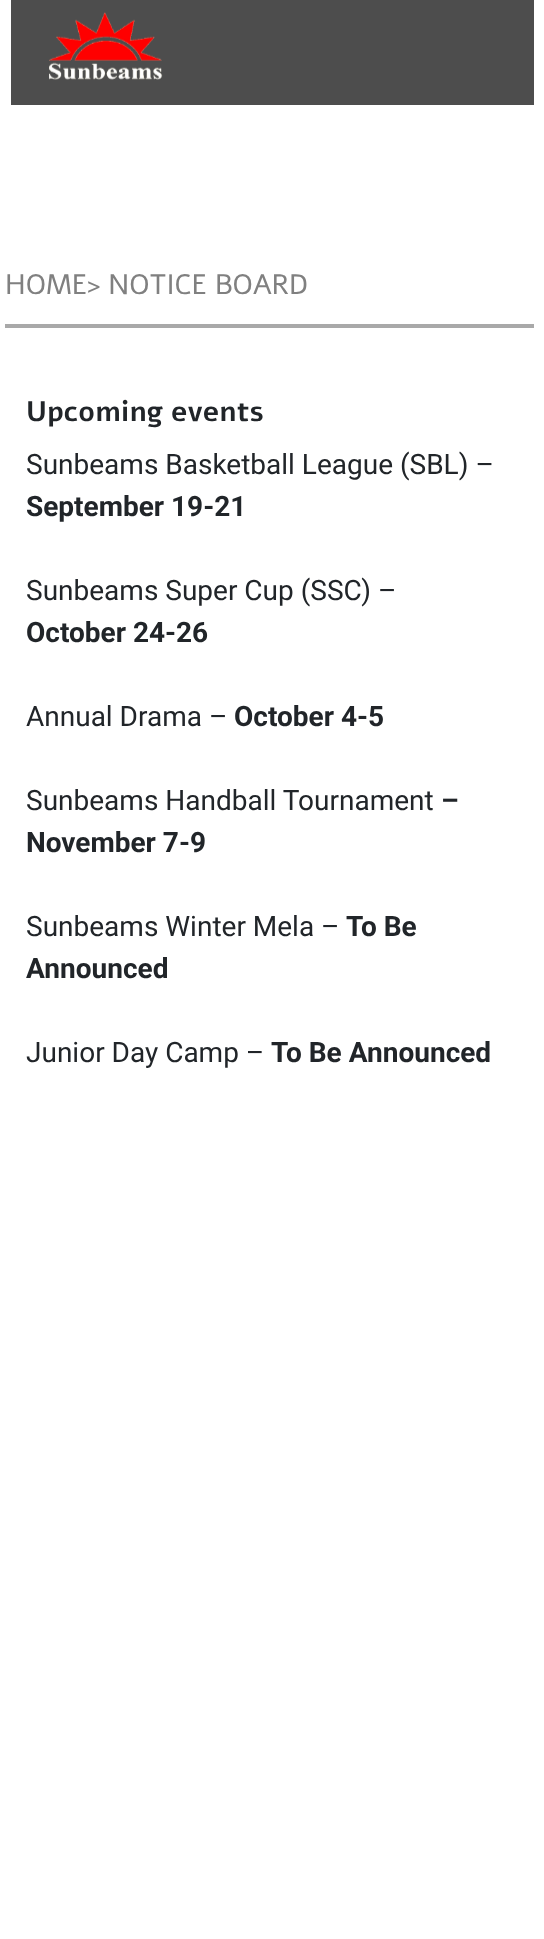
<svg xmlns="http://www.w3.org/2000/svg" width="544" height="1939">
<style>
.a{font:28px Alef;fill:#808080}
.b{font:bold 28px Alef;fill:#212529}
.c{font:28px Roboto;fill:#212529}
.d{font:bold 28px Roboto;fill:#212529}
</style>
<rect width="100%" height="100%" fill="#fff"/>
<path fill="#4d4d4d" d="M11 0h523v105H11z"/>
<image href="1.png" x="49" y="12" width="114" height="68"/>
<path fill="#a9a9a9" d="M5 324h529v4H5z"/>
<text class="a" x="5" y="294">HOME&gt; NOTICE BOARD</text>
<text class="b" x="26" y="421">Upcoming events</text>
<text class="c" x="26" y="474">Sunbeams Basketball League (SBL) –</text>
<text class="d" x="26" y="516">September 19-21</text>
<text class="c" x="26" y="600">Sunbeams Super Cup (SSC) –</text>
<text class="d" x="26" y="642">October 24-26</text>
<text class="c" x="26" y="726">Annual Drama –</text>
<text class="d" x="234" y="726">October 4-5</text>
<text class="c" x="26" y="810">Sunbeams Handball Tournament</text>
<text class="d" x="441" y="810">–</text>
<text class="d" x="26" y="852">November 7-9</text>
<text class="c" x="26" y="936">Sunbeams Winter Mela –</text>
<text class="d" x="346" y="936">To Be</text>
<text class="d" x="26" y="978">Announced</text>
<text class="c" x="26" y="1062">Junior Day Camp –</text>
<text class="d" x="271" y="1062">To Be Announced</text>
</svg>
